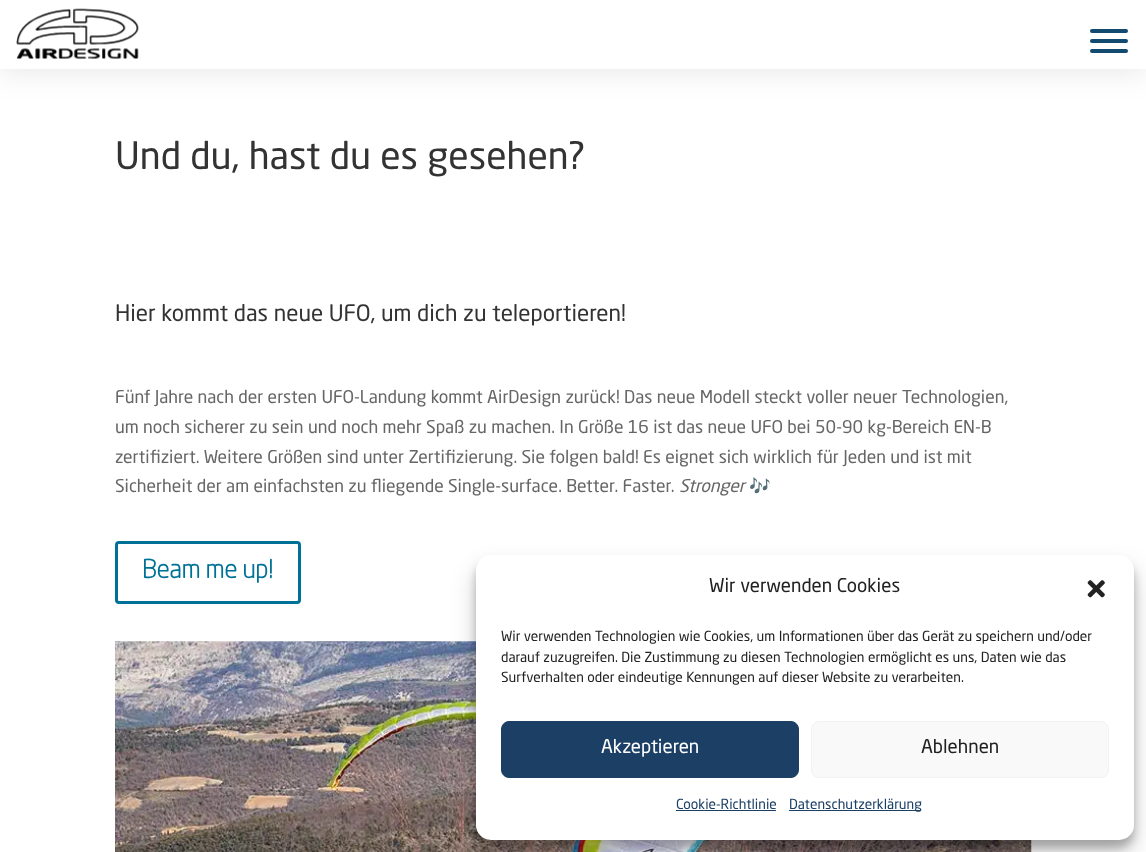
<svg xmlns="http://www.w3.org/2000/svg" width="1146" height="852">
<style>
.a{font:37.5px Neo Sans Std;fill:#333}
.b{font:22.5px Neo Sans Std;fill:#333}
.c{font:17.5px Neo Sans Std;fill:#666}
.d{font:italic 17.5px Neo Sans Std;fill:#666}
.e{font:17.5px Noto Color Emoji;fill:#666}
.f{font:bold 25px Neo Sans Std;fill:#007196}
.g{font:18.75px Neo Sans Std;fill:#222}
.h{font:13.75px Neo Sans Std;fill:#222}
.i{font:18.75px Neo Sans Std;fill:#fff}
.j{font:13.75px Neo Sans Std;fill:#1c3f65}
</style>
<rect width="100%" height="100%" fill="#fff"/>
<path fill="#0000001a" filter="blur(15.5px)" d="M0 3h1146v68H0z"/>
<path fill="#fff" d="M0 0h1146v69H0z"/>
<image href="1.png" x="16" y="8" width="123" height="51"/>
<rect fill="#134a70" x="1090" y="49" width="38" height="4" rx="2"/>
<rect fill="#134a70" x="1090" y="29" width="38" height="4" rx="2"/>
<rect fill="#134a70" x="1090" y="39" width="38" height="4" rx="2"/>
<rect fill="none" stroke="#007196" stroke-width="3" x="116.5" y="542.5" width="183" height="60" rx="2.5"/>
<image href="2.png" x="115" y="641" width="917" height="211"/>
<rect fill="#0000003b" filter="blur(4px)" x="476" y="563" width="658" height="285" rx="15"/>
<rect fill="#00000030" filter="blur(12.5px)" x="476" y="568" width="658" height="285" rx="15"/>
<rect fill="#fff" x="476" y="555" width="658" height="285" rx="15"/>
<image href="3.png" x="1087" y="580" width="18" height="18"/>
<rect fill="#1c3f65" stroke="#1c3f65" x="501.5" y="721.5" width="297" height="56" rx="7.5"/>
<rect fill="#f9f9f9" stroke="#f2f2f2" x="811.5" y="721.5" width="297" height="56" rx="7.5"/>
<path fill="#1c3f65" d="M676 810h100v1H676z"/>
<path fill="#1c3f65" d="M789 810h132v1H789z"/>
<text class="a" x="115" y="169">Und du, hast du es gesehen?</text>
<text class="b" x="115" y="321">Hier kommt das neue UFO, um dich zu teleportieren!</text>
<text class="c" x="115" y="403">Fünf Jahre nach der ersten UFO-Landung kommt AirDesign zurück! Das neue Modell steckt voller neuer Technologien,</text>
<text class="c" x="115" y="433">um noch sicherer zu sein und noch mehr Spaß zu machen. In Größe 16 ist das neue UFO bei 50-90 kg-Bereich EN-B</text>
<text class="c" x="115" y="463">zertifiziert. Weitere Größen sind unter Zertifizierung. Sie folgen bald! Es eignet sich wirklich für Jeden und ist mit</text>
<text class="c" x="115" y="492">Sicherheit der am einfachsten zu fliegende Single-surface. Better. Faster.</text>
<text class="d" x="679" y="492">Stronger</text>
<text class="e" x="749" y="492">🎶</text>
<text class="f" x="142" y="578">Beam me up!</text>
<text class="g" x="709" y="592">Wir verwenden Cookies</text>
<text class="h" x="501" y="641">Wir verwenden Technologien wie Cookies, um Informationen über das Gerät zu speichern und/oder</text>
<text class="h" x="501" y="662">darauf zuzugreifen. Die Zustimmung zu diesen Technologien ermöglicht es uns, Daten wie das</text>
<text class="h" x="501" y="682">Surfverhalten oder eindeutige Kennungen auf dieser Website zu verarbeiten.</text>
<text class="i" x="601" y="753">Akzeptieren</text>
<text class="g" x="921" y="753">Ablehnen</text>
<text class="j" x="676" y="809">Cookie-Richtlinie</text>
<text class="j" x="789" y="809">Datenschutzerklärung</text>
</svg>
